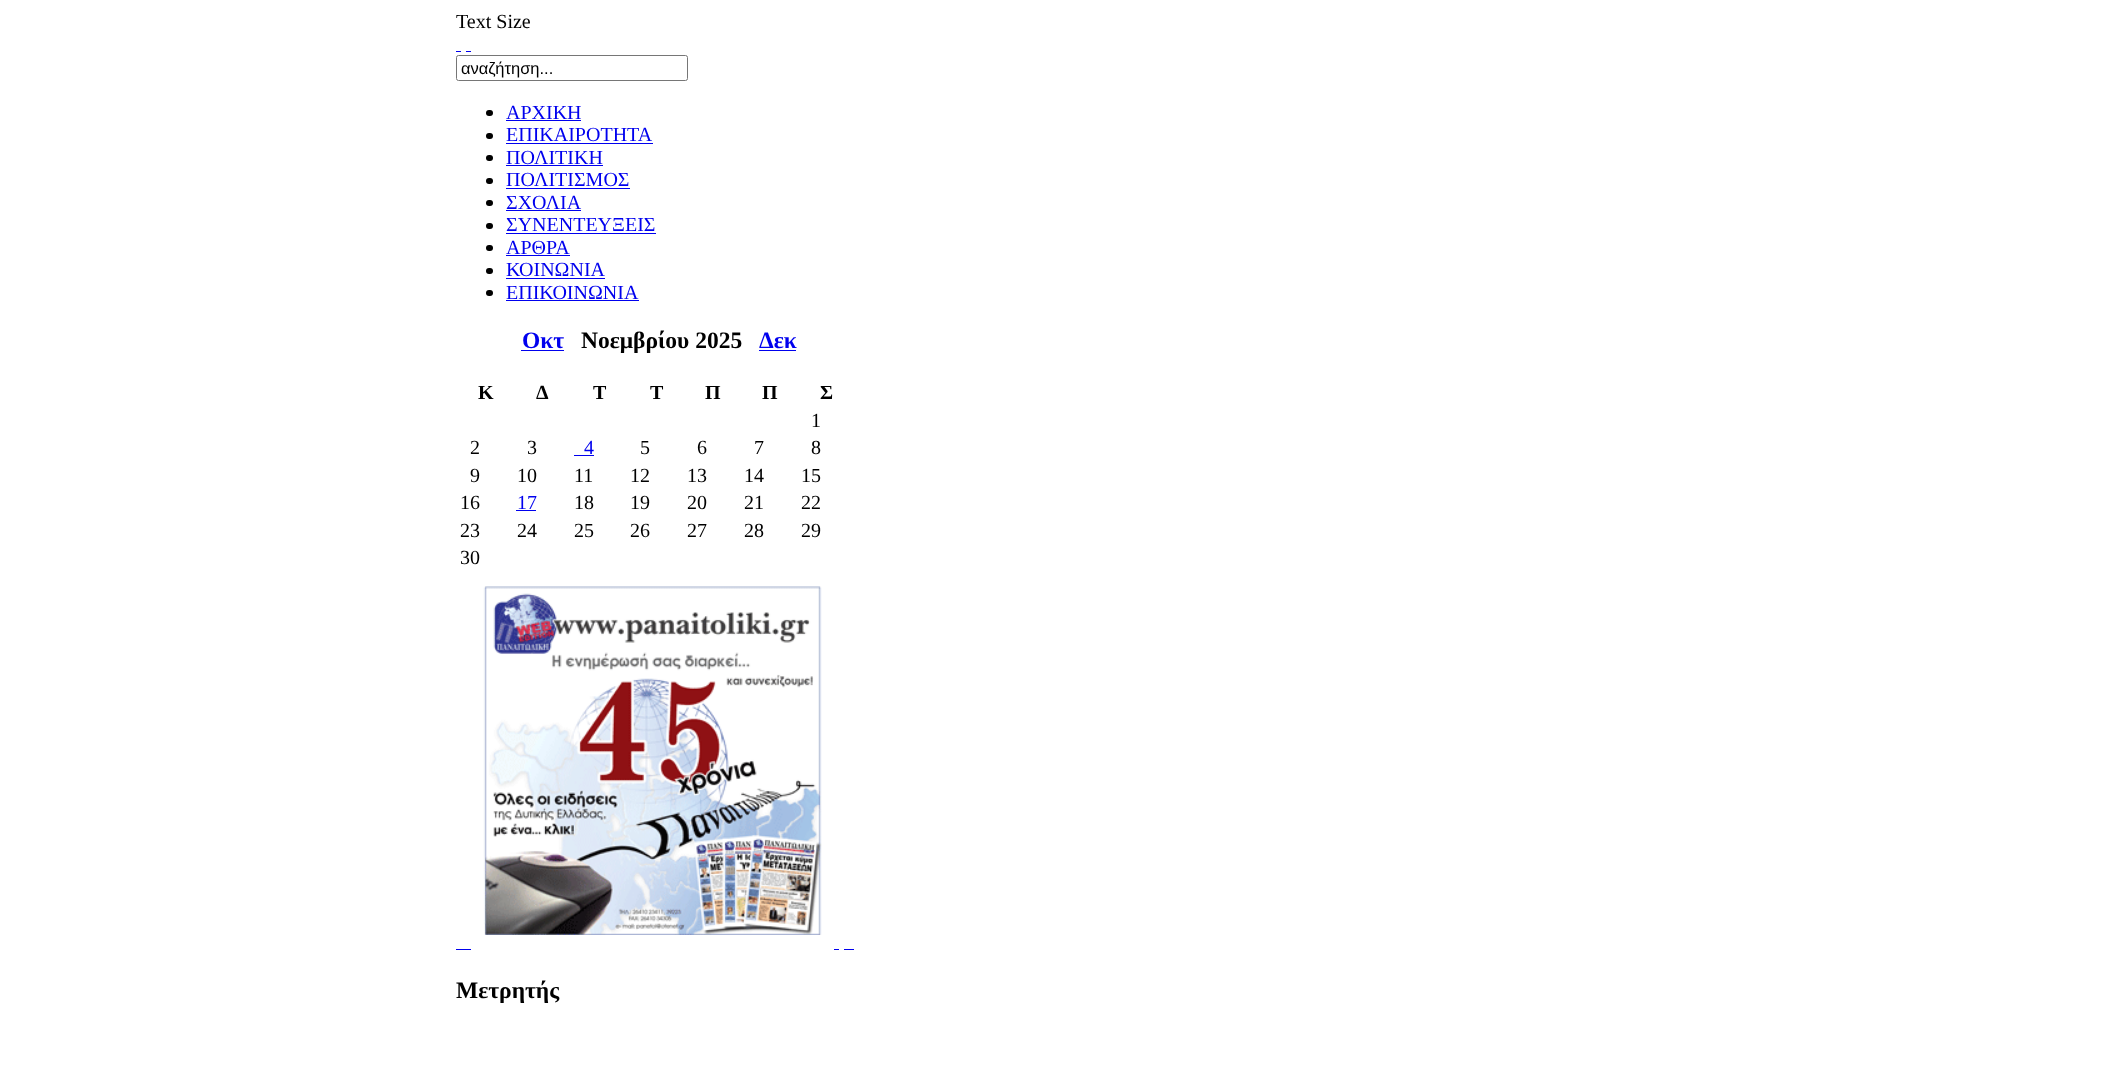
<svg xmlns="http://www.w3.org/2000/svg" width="2114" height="1086">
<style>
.a{font:20px Liberation Serif;fill:#000}
.b{font:16.5px Liberation Sans;fill:#000}
.c{font:20px Liberation Serif;fill:#00e}
.d{font:bold 23.5px Liberation Serif;fill:#00e}
.e{font:bold 23.5px Liberation Serif;fill:#000}
.f{font:bold 20px Liberation Serif;fill:#000}
</style>
<rect width="100%" height="100%" fill="#fff"/>
<path fill="#00e" d="M456 51h5v1H456z"/>
<path fill="#00e" d="M466 51h5v1H466z"/>
<rect fill="none" stroke="#767676" x="456.5" y="55.5" width="231" height="25" rx="2"/>
<rect fill="#000" x="486" y="110" width="7" height="6" rx="3"/>
<path fill="#00e" d="M506 120h75v1H506z"/>
<rect fill="#000" x="486" y="133" width="7" height="6" rx="3"/>
<path fill="#00e" d="M506 143h147v1H506z"/>
<rect fill="#000" x="486" y="155" width="7" height="6" rx="3"/>
<path fill="#00e" d="M506 165h97v1H506z"/>
<rect fill="#000" x="486" y="178" width="7" height="6" rx="3"/>
<path fill="#00e" d="M506 188h124v1H506z"/>
<rect fill="#000" x="486" y="200" width="7" height="6" rx="3"/>
<path fill="#00e" d="M506 210h75v1H506z"/>
<rect fill="#000" x="486" y="223" width="7" height="6" rx="3"/>
<path fill="#00e" d="M506 233h150v1H506z"/>
<rect fill="#000" x="486" y="245" width="7" height="6" rx="3"/>
<path fill="#00e" d="M506 255h64v1H506z"/>
<rect fill="#000" x="486" y="268" width="7" height="6" rx="3"/>
<path fill="#00e" d="M506 278h99v1H506z"/>
<rect fill="#000" x="486" y="290" width="7" height="6" rx="3"/>
<path fill="#00e" d="M506 300h133v1H506z"/>
<path fill="#00e" d="M521 350h43v1H521z"/>
<path fill="#00e" d="M759 350h37v1H759z"/>
<path fill="#00e" d="M574 455h20v1H574z"/>
<path fill="#00e" d="M516 510h20v1H516z"/>
<image href="1.png" x="483" y="586" width="339" height="349"/>
<path fill="#00e" d="M456 949h15v1H456z"/>
<path fill="#00e" d="M834 949h5v1H834z"/>
<path fill="#00e" d="M844 949h10v1H844z"/>
<text class="a" x="456" y="28">Text Size</text>
<text class="b" x="461" y="74">αναζήτηση...</text>
<text class="c" x="506" y="119">ΑΡΧΙΚΗ</text>
<text class="c" x="506" y="141">ΕΠΙΚΑΙΡΟΤΗΤΑ</text>
<text class="c" x="506" y="164">ΠΟΛΙΤΙΚΗ</text>
<text class="c" x="506" y="186">ΠΟΛΙΤΙΣΜΟΣ</text>
<text class="c" x="506" y="209">ΣΧΟΛΙΑ</text>
<text class="c" x="506" y="231">ΣΥΝΕΝΤΕΥΞΕΙΣ</text>
<text class="c" x="506" y="254">ΑΡΘΡΑ</text>
<text class="c" x="506" y="276">ΚΟΙΝΩΝΙΑ</text>
<text class="c" x="506" y="299">ΕΠΙΚΟΙΝΩΝΙΑ</text>
<text class="d" x="522" y="348">Οκτ</text>
<text class="e" x="581" y="348">Νοεμβρίου 2025</text>
<text class="d" x="759" y="348">Δεκ</text>
<text class="f" x="478" y="399">Κ</text>
<text class="f" x="536" y="399">Δ</text>
<text class="f" x="593" y="399">Τ</text>
<text class="f" x="650" y="399">Τ</text>
<text class="f" x="705" y="399">Π</text>
<text class="f" x="762" y="399">Π</text>
<text class="f" x="820" y="399">Σ</text>
<text class="a" x="811" y="427">1</text>
<text class="a" x="470" y="454">2</text>
<text class="a" x="527" y="454">3</text>
<text class="c" x="584" y="454">4</text>
<text class="a" x="640" y="454">5</text>
<text class="a" x="697" y="454">6</text>
<text class="a" x="754" y="454">7</text>
<text class="a" x="811" y="454">8</text>
<text class="a" x="470" y="482">9</text>
<text class="a" x="517" y="482">10</text>
<text class="a" x="574" y="482">11</text>
<text class="a" x="630" y="482">12</text>
<text class="a" x="687" y="482">13</text>
<text class="a" x="744" y="482">14</text>
<text class="a" x="801" y="482">15</text>
<text class="a" x="460" y="509">16</text>
<text class="c" x="517" y="509">17</text>
<text class="a" x="574" y="509">18</text>
<text class="a" x="630" y="509">19</text>
<text class="a" x="687" y="509">20</text>
<text class="a" x="744" y="509">21</text>
<text class="a" x="801" y="509">22</text>
<text class="a" x="460" y="537">23</text>
<text class="a" x="517" y="537">24</text>
<text class="a" x="574" y="537">25</text>
<text class="a" x="630" y="537">26</text>
<text class="a" x="687" y="537">27</text>
<text class="a" x="744" y="537">28</text>
<text class="a" x="801" y="537">29</text>
<text class="a" x="460" y="564">30</text>
<text class="e" x="456" y="998">Μετρητής</text>
</svg>
